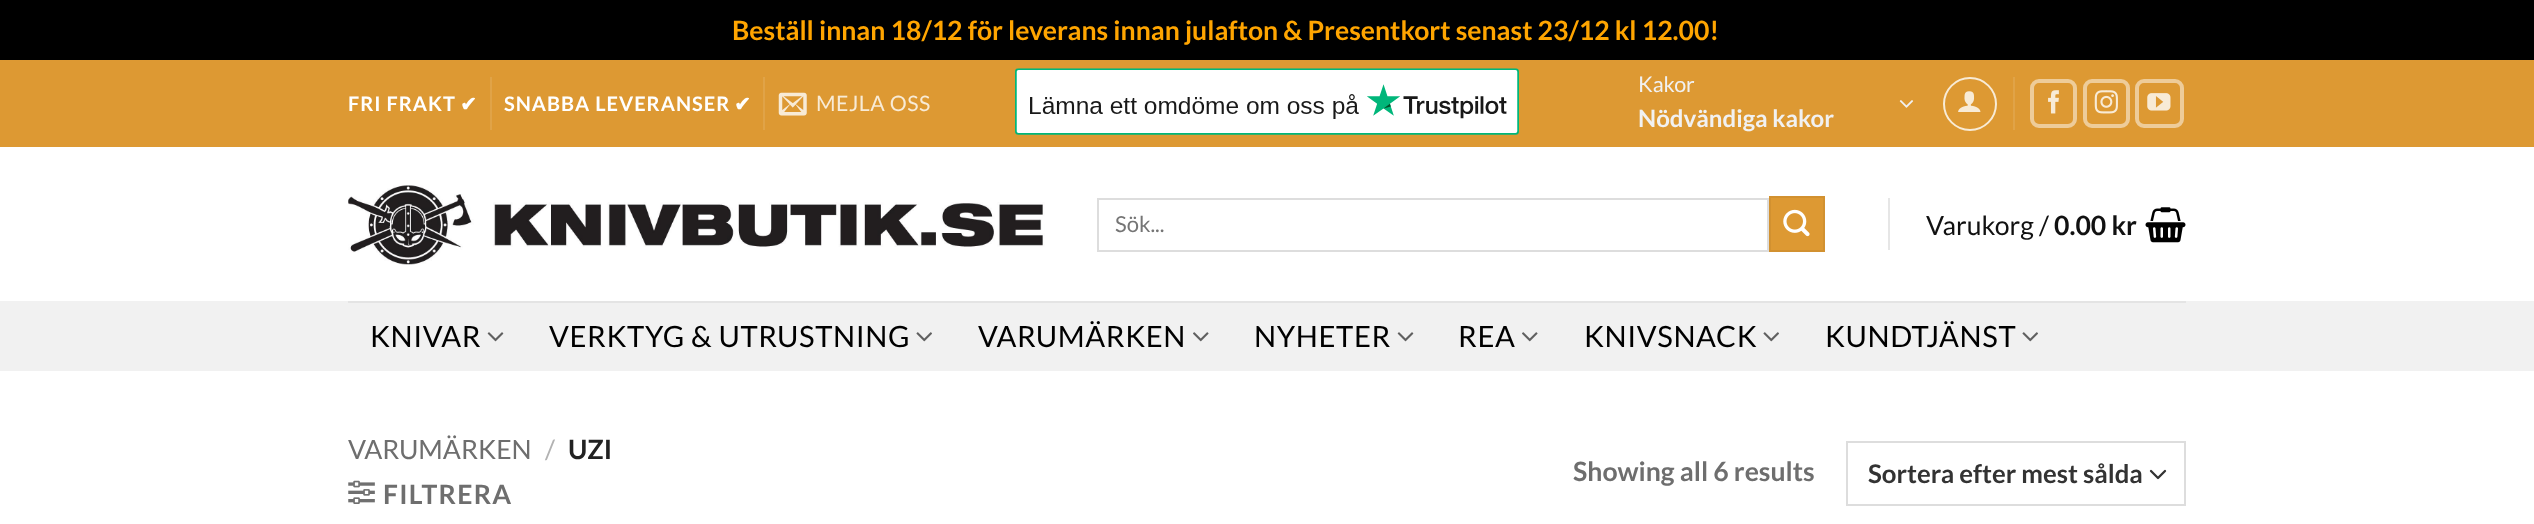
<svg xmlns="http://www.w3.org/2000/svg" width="2534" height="524">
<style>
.a{font:bold 26.6px Lato;fill:#ffa500}
.b{font:bold 20px Lato;letter-spacing:1px;fill:#fff}
.c{font:bold 20px DejaVu Sans;fill:#fff}
.d{font:21.25px Lato;letter-spacing:0.5px;fill:#f8ebd6}
.e{font:21.5px Lato;fill:#f1f1f1}
.f{font:bold 24px Lato;fill:#f1f1f1}
.g{font:22px Lato;fill:#757575}
.h{font:26.6px Lato;fill:#111}
.i{font:bold 26.6px Lato;fill:#111}
.j{font:29.25px Lato;letter-spacing:0.6px;fill:#000}
.k{font:26.6px Lato;fill:#6e6e6e}
.l{font:26.6px Lato;fill:#b2b2b2}
.m{font:bold 26.6px Lato;fill:#222}
.n{font:bold 26.6px Lato;letter-spacing:1.25px;fill:#6e6e6e}
.o{font:bold 26.6px Lato;fill:#6e6e6e}
.p{font:bold 25.75px Lato;fill:#333}
</style>
<rect width="100%" height="100%" fill="#000"/>
<path fill="#fff" d="M0 147h2534v377H0z"/>
<path fill="#d93" d="M0 60h2534v87H0z"/>
<path fill="#e0a347" d="M490 77h2v53H490z"/>
<path fill="#e0a347" d="M763 77h2v53H763z"/>
<image href="1.png" x="778" y="92" width="29" height="24"/>
<image href="2.png" x="1015" y="68" width="504" height="67"/>
<image href="3.png" x="1899" y="100" width="15" height="8"/>
<circle fill="none" stroke="#f8ebd6" stroke-width="2" cx="1970" cy="104" r="26"/>
<image href="4.png" x="1958" y="91" width="23" height="21"/>
<path fill="#e0a347" d="M2013 77h2v53H2013z"/>
<rect fill="none" stroke="#ec9" stroke-width="4" x="2032" y="81" width="43" height="45" rx="7"/>
<image href="5.png" x="2048" y="90" width="11" height="24"/>
<rect fill="none" stroke="#ec9" stroke-width="4" x="2085" y="81" width="43" height="45" rx="7"/>
<image href="6.png" x="2094" y="90" width="24" height="24"/>
<rect fill="none" stroke="#ec9" stroke-width="4" x="2137" y="81" width="45" height="45" rx="7"/>
<image href="7.png" x="2147" y="93" width="24" height="18"/>
<image href="8.png" x="348" y="185" width="697" height="80"/>
<path fill="none" stroke="#ddd" stroke-width="2" d="M1098 199h670v52H1098z"/>
<path fill="#d93" stroke="#d29130" stroke-width="2" d="M1770 197h54v54H1770z"/>
<image href="9.png" x="1783" y="209" width="27" height="28"/>
<path fill="#e6e6e6" d="M1888 198h2v52H1888z"/>
<image href="10.png" x="2145" y="207" width="41" height="36"/>
<path fill="#f1f1f1" d="M0 301h2534v70H0z"/>
<path fill="#e4e4e4" d="M348 301h1838v2H348z"/>
<image href="11.png" x="487" y="332" width="17" height="10"/>
<image href="12.png" x="916" y="332" width="16" height="10"/>
<image href="13.png" x="1193" y="332" width="16" height="10"/>
<image href="11.png" x="1397" y="332" width="17" height="10"/>
<image href="13.png" x="1522" y="332" width="16" height="10"/>
<image href="12.png" x="1763" y="332" width="16" height="10"/>
<image href="12.png" x="2022" y="332" width="16" height="10"/>
<image href="14.png" x="348" y="480" width="27" height="24"/>
<path fill="none" stroke="#333" stroke-width="2.3" stroke-linecap="round" stroke-linejoin="round" d="M2151 471l7 7l7-7"/>
<path fill="none" stroke="#ddd" stroke-width="2" d="M1847 442h338v63H1847z"/>
<text class="a" x="732" y="40">Beställ innan 18/12 för leverans innan julafton &amp; Presentkort senast 23/12 kl 12.00!</text>
<text class="b" x="348" y="111">FRI FRAKT</text>
<text class="c" x="460" y="111">✔</text>
<text class="b" x="504" y="111">SNABBA LEVERANSER</text>
<text class="c" x="734" y="111">✔</text>
<text class="d" x="816" y="111">MEJLA OSS</text>
<text class="e" x="1638" y="92">Kakor</text>
<text class="f" x="1638" y="127">Nödvändiga kakor</text>
<text class="g" x="1115" y="232">Sök...</text>
<text class="h" x="1926" y="235">Varukorg /</text>
<text class="i" x="2054" y="235">0.00 kr</text>
<text class="j" x="370" y="347">KNIVAR</text>
<text class="j" x="549" y="347">VERKTYG &amp; UTRUSTNING</text>
<text class="j" x="978" y="347">VARUMÄRKEN</text>
<text class="j" x="1254" y="347">NYHETER</text>
<text class="j" x="1458" y="347">REA</text>
<text class="j" x="1584" y="347">KNIVSNACK</text>
<text class="j" x="1825" y="347">KUNDTJÄNST</text>
<text class="k" x="348" y="459">VARUMÄRKEN</text>
<text class="l" x="545" y="459">/</text>
<text class="m" x="568" y="459">UZI</text>
<text class="n" x="383" y="504">FILTRERA</text>
<text class="o" x="1573" y="481">Showing all 6 results</text>
<text class="p" x="1868" y="483">Sortera efter mest sålda</text>
</svg>
